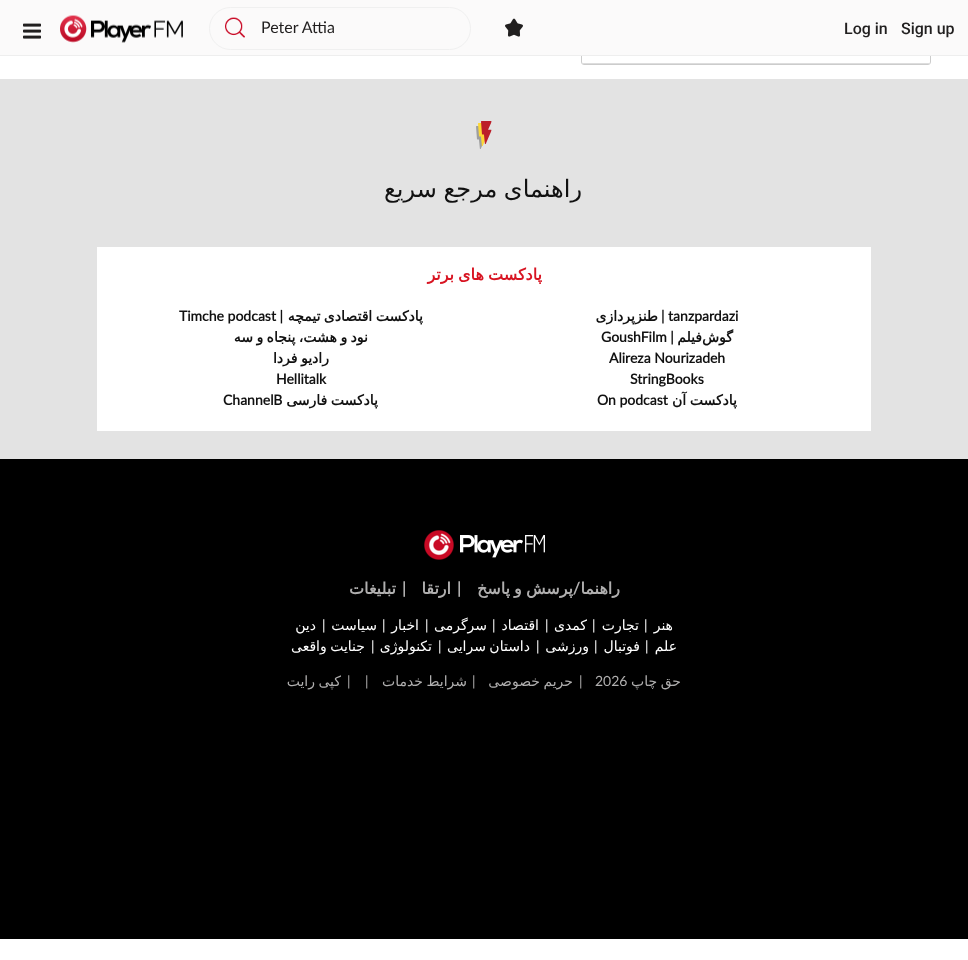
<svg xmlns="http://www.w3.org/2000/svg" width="968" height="960">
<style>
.a{font:500 16px Roboto;fill:#211f1f}
.b{font:16px Lato;fill:#211f1f}
.c{font:24px DejaVu Sans;direction:rtl;fill:#111}
.d{font:bold 16px DejaVu Sans;direction:rtl;fill:#d81422}
.e{font:bold 14px Lato;fill:#111}
.f{font:bold 14px DejaVu Sans;direction:rtl;fill:#111}
.g{font:bold 16px DejaVu Sans;direction:rtl;fill:#b0afaf}
.h{font:bold 16px Lato;direction:rtl;fill:#b0afaf}
.i{font:bold 16px Lato;fill:#b0afaf}
.j{font:14px DejaVu Sans;direction:rtl;fill:#fff}
.k{font:14px Lato;fill:#fff}
.l{font:14px DejaVu Sans;direction:rtl;fill:#b0afaf}
.m{font:14px Lato;fill:#b0afaf}
</style>
<rect width="100%" height="100%" fill="#fff"/>
<rect fill="none" stroke="#ccc" x="581.5" y="-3.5" width="349" height="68" rx="2.5"/>
<path fill="#ddd" d="M582 63h348v1H582z"/>
<path fill="#fbfafa" d="M0 0h968v55H0z"/>
<path fill="#eee" d="M0 55h968v1H0z"/>
<image href="1.png" x="505" y="18" width="18" height="19"/>
<rect fill="none" stroke="#f0f0f0" x="209.5" y="7.5" width="261" height="42" rx="21"/>
<image href="2.png" x="225" y="17" width="20" height="21"/>
<image href="3.png" x="60" y="15" width="123" height="28"/>
<image href="4.png" x="23" y="23" width="18" height="16"/>
<path fill="#e3e3e3" d="M0 79h968v380H0z"/>
<image href="5.png" x="476" y="121" width="16" height="28"/>
<path fill="#fff" d="M97 247h774v184H97z"/>
<path fill="#000" d="M0 459h968v480H0z"/>
<image href="6.png" x="460" y="535" width="85" height="23"/>
<image href="7.png" x="424" y="530" width="30" height="30"/>
<text class="a" x="901" y="34">Sign up</text>
<text class="a" x="844" y="34">Log in</text>
<text class="b" x="261" y="33">Peter Attia</text>
<text class="c" x="582" y="197" word-spacing="-1">راهنمای مرجع سریع</text>
<text class="d" x="542" y="280" word-spacing="-1">پادکست های برتر</text>
<text class="e" x="661" y="321">| tanzpardazi</text>
<text class="f" x="658" y="321">طنزپردازی</text>
<text class="f" x="423" y="321" word-spacing="-1">پادکست اقتصادی تیمچه</text>
<text class="e" x="179" y="321">Timche podcast |</text>
<text class="f" x="733" y="342">گوش</text>
<text class="f" x="702" y="342">فیلم</text>
<text class="e" x="601" y="342">GoushFilm |</text>
<text class="f" x="368" y="342" word-spacing="-1">نود و هشت، پنجاه و سه</text>
<text class="e" x="609" y="363">Alireza Nourizadeh</text>
<text class="f" x="329" y="363" word-spacing="-1">رادیو فردا</text>
<text class="e" x="630" y="384">StringBooks</text>
<text class="e" x="276" y="384">Hellitalk</text>
<text class="f" x="737" y="405" word-spacing="-1">پادکست آن</text>
<text class="e" x="597" y="405">On podcast</text>
<text class="f" x="378" y="405" word-spacing="-1">پادکست فارسی</text>
<text class="e" x="223" y="405">ChannelB</text>
<text class="g" x="620" y="594">راهنما</text>
<text class="g" x="573" y="594" word-spacing="-1">پرسش و پاسخ</text>
<text class="h" x="580" y="594">/</text>
<text class="i" x="457" y="594">|</text>
<text class="g" x="451" y="594">ارتقا</text>
<text class="i" x="402" y="594">|</text>
<text class="g" x="396" y="594">تبلیغات</text>
<text class="j" x="673" y="630">هنر</text>
<text class="k" x="644" y="630">|</text>
<text class="j" x="639" y="630">تجارت</text>
<text class="k" x="592" y="630">|</text>
<text class="j" x="587" y="630">کمدی</text>
<text class="k" x="545" y="630">|</text>
<text class="j" x="539" y="630">اقتصاد</text>
<text class="k" x="492" y="630">|</text>
<text class="j" x="487" y="630">سرگرمی</text>
<text class="k" x="425" y="630">|</text>
<text class="j" x="419" y="630">اخبار</text>
<text class="k" x="382" y="630">|</text>
<text class="j" x="377" y="630">سیاست</text>
<text class="k" x="322" y="630">|</text>
<text class="j" x="316" y="630">دین</text>
<text class="j" x="677" y="651">علم</text>
<text class="k" x="645" y="651">|</text>
<text class="j" x="640" y="651">فوتبال</text>
<text class="k" x="594" y="651">|</text>
<text class="j" x="589" y="651">ورزشی</text>
<text class="k" x="536" y="651">|</text>
<text class="j" x="530" y="651" word-spacing="-1">داستان سرایی</text>
<text class="k" x="438" y="651">|</text>
<text class="j" x="432" y="651">تکنولوژی</text>
<text class="k" x="371" y="651">|</text>
<text class="j" x="365" y="651" word-spacing="-1">جنایت واقعی</text>
<text class="l" x="681" y="686" word-spacing="-1">حق چاپ</text>
<text class="m" x="595" y="686">2026</text>
<text class="m" x="579" y="686">|</text>
<text class="l" x="573" y="686" word-spacing="-1">حریم خصوصی</text>
<text class="m" x="472" y="686">|</text>
<text class="l" x="467" y="686" word-spacing="-1">شرایط خدمات</text>
<text class="m" x="365" y="686">|</text>
<text class="m" x="347" y="686">|</text>
<text class="l" x="341" y="686" word-spacing="-1">کپی رایت</text>
</svg>
